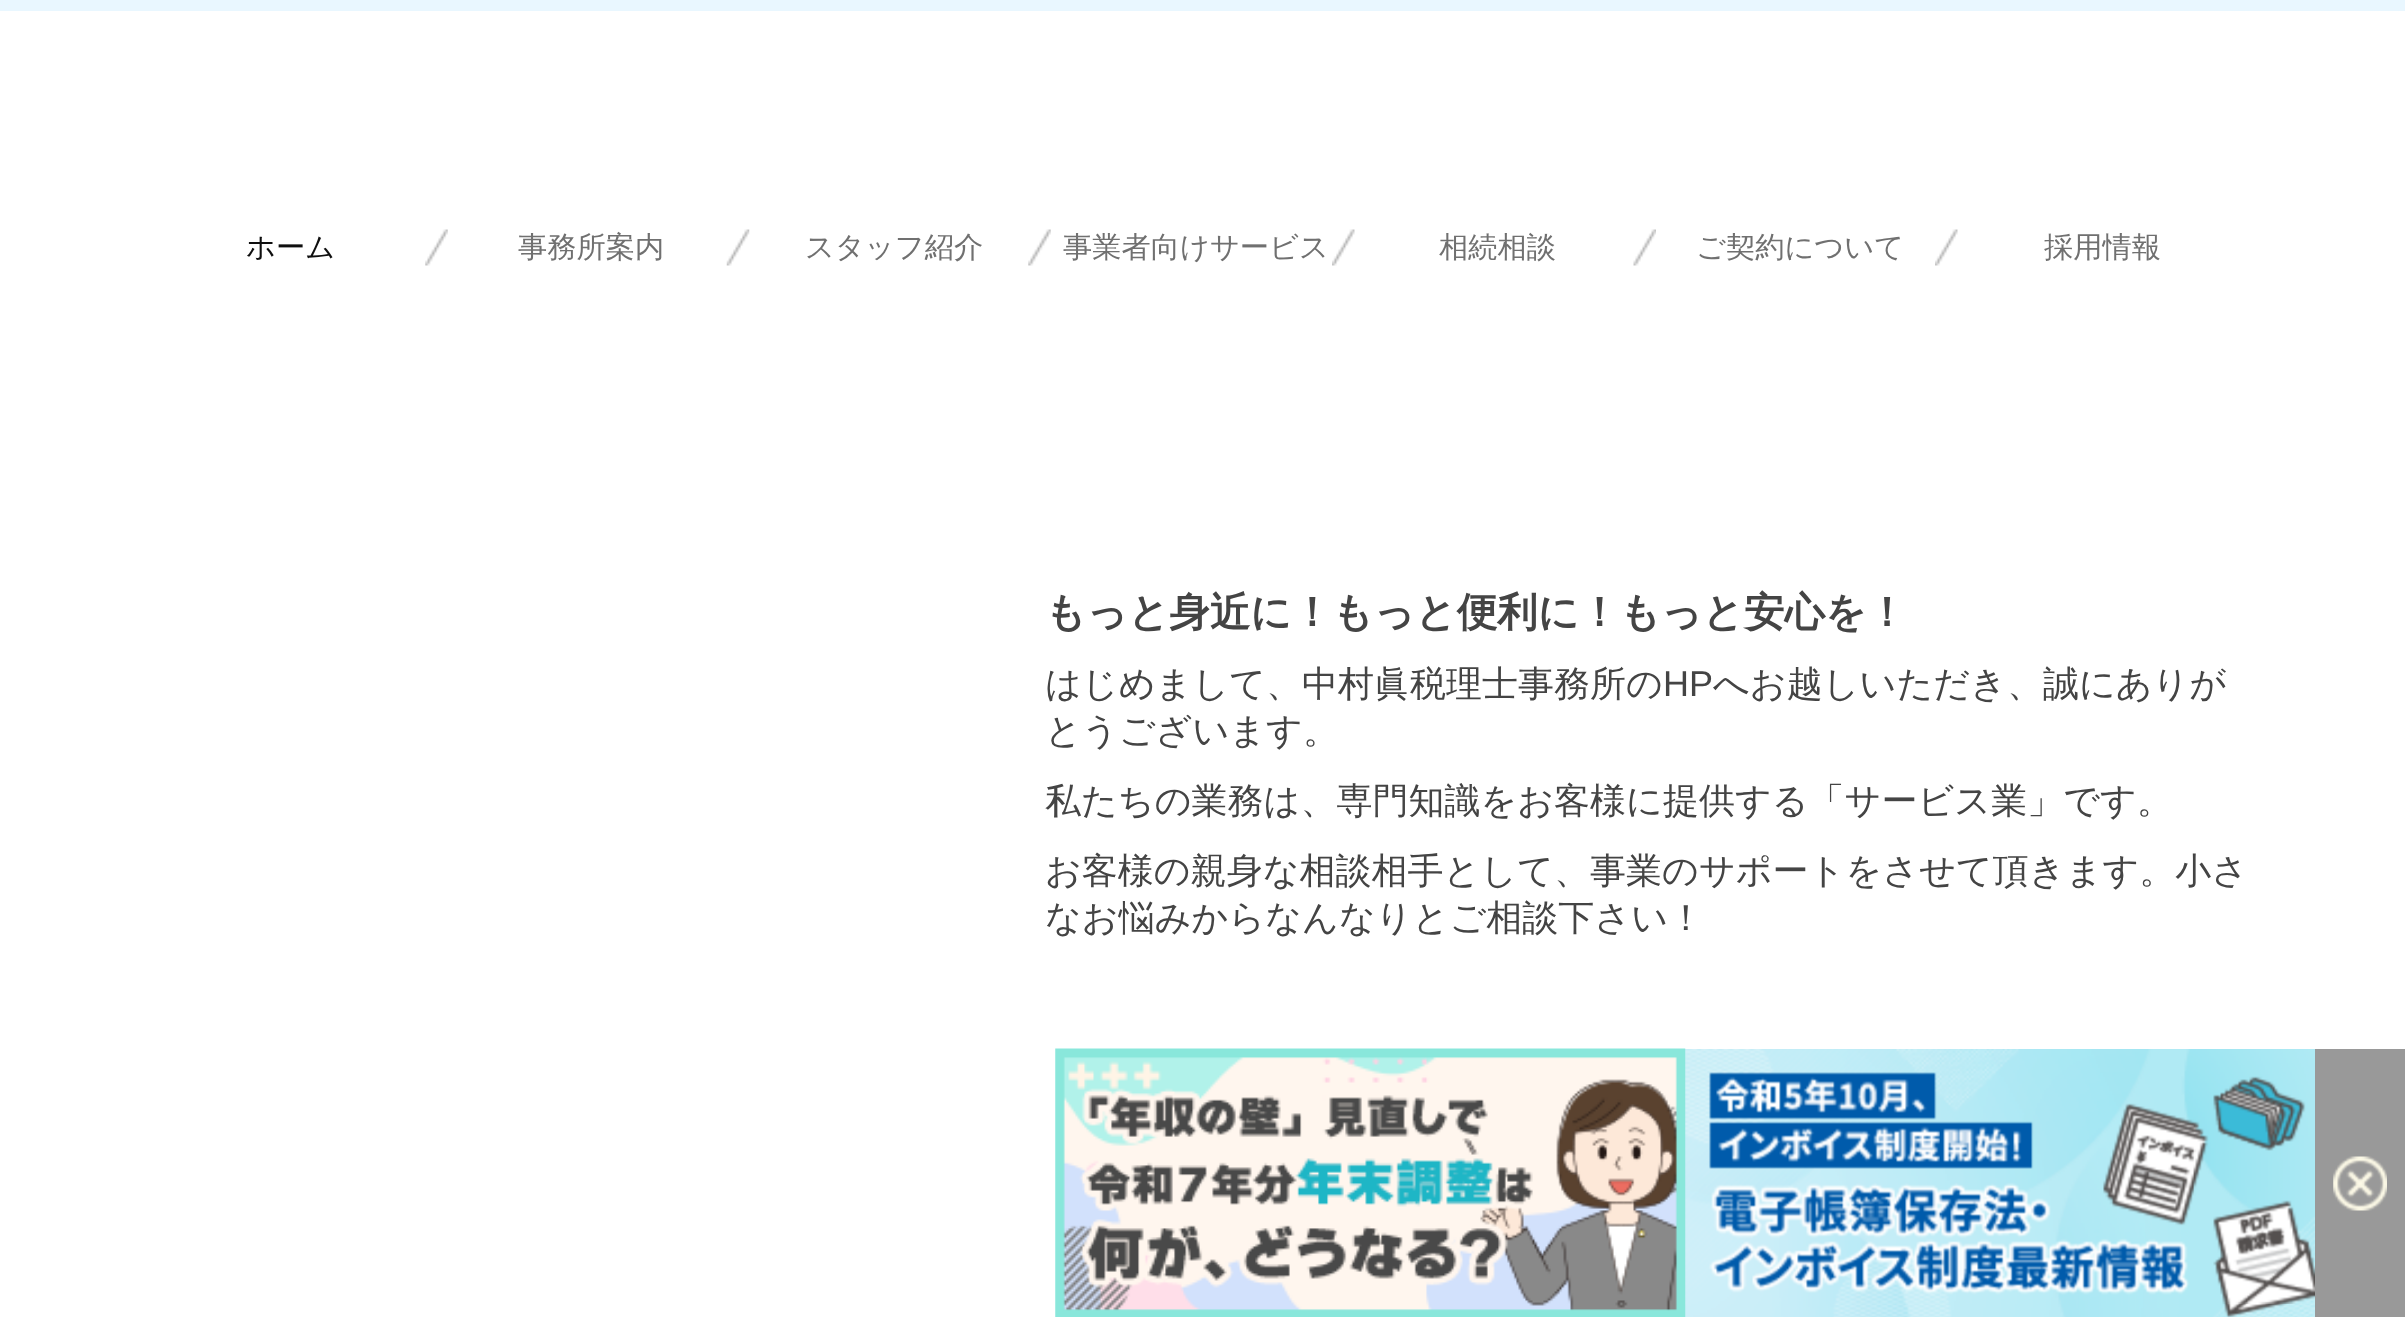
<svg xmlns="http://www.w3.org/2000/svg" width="2405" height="1317">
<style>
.a{font:500 29.25px WenQuanYi Zen Hei;fill:#0f0f0f}
.b{font:500 29.25px WenQuanYi Zen Hei;fill:#707070}
.c{font:bold 40.5px WenQuanYi Zen Hei;fill:#444}
.d{font:500 36px WenQuanYi Zen Hei;fill:#444}
.e{font:36px Liberation Sans;fill:#444}
</style>
<rect width="100%" height="100%" fill="#fff"/>
<path fill="#e9f7ff" d="M0 0h2405v11H0z"/>
<image href="1.png" x="425" y="229" width="23" height="37"/>
<image href="2.png" x="726" y="229" width="24" height="37"/>
<image href="1.png" x="1028" y="229" width="23" height="37"/>
<image href="3.png" x="1332" y="229" width="23" height="37"/>
<image href="4.png" x="1633" y="229" width="23" height="37"/>
<image href="5.png" x="1935" y="229" width="23" height="37"/>
<image href="7.png" x="1685" y="1049" width="630" height="268"/>
<image href="6.png" x="1055" y="1048" width="631" height="269"/>
<path fill="#999" d="M2315 1049h90v268H2315z"/>
<image href="8.png" x="2333" y="1156" width="54" height="55"/>
<text class="a" x="246" y="257">ホーム</text>
<text class="b" x="518" y="257">事務所案内</text>
<text class="b" x="805" y="257">スタッフ紹介</text>
<text class="b" x="1063" y="257">事業者向けサービス</text>
<text class="b" x="1439" y="257">相続相談</text>
<text class="b" x="1696" y="257">ご契約について</text>
<text class="b" x="2044" y="257">採用情報</text>
<text class="c" x="1045" y="626">もっと身近に！もっと便利に！もっと安心を！</text>
<text class="d" x="1045" y="696">はじめまして、中村眞税理士事務所の</text>
<text class="e" x="1663" y="696">HP</text>
<text class="d" x="1713" y="696">へお越しいただき、誠にありが</text>
<text class="d" x="1045" y="743">とうございます。</text>
<text class="d" x="1045" y="813">私たちの業務は、専門知識をお客様に提供する「サービス業」です。</text>
<text class="d" x="1045" y="883">お客様の親身な相談相手として、事業のサポートをさせて頂きます。小さ</text>
<text class="d" x="1045" y="930">なお悩みからなんなりとご相談下さい！</text>
</svg>
